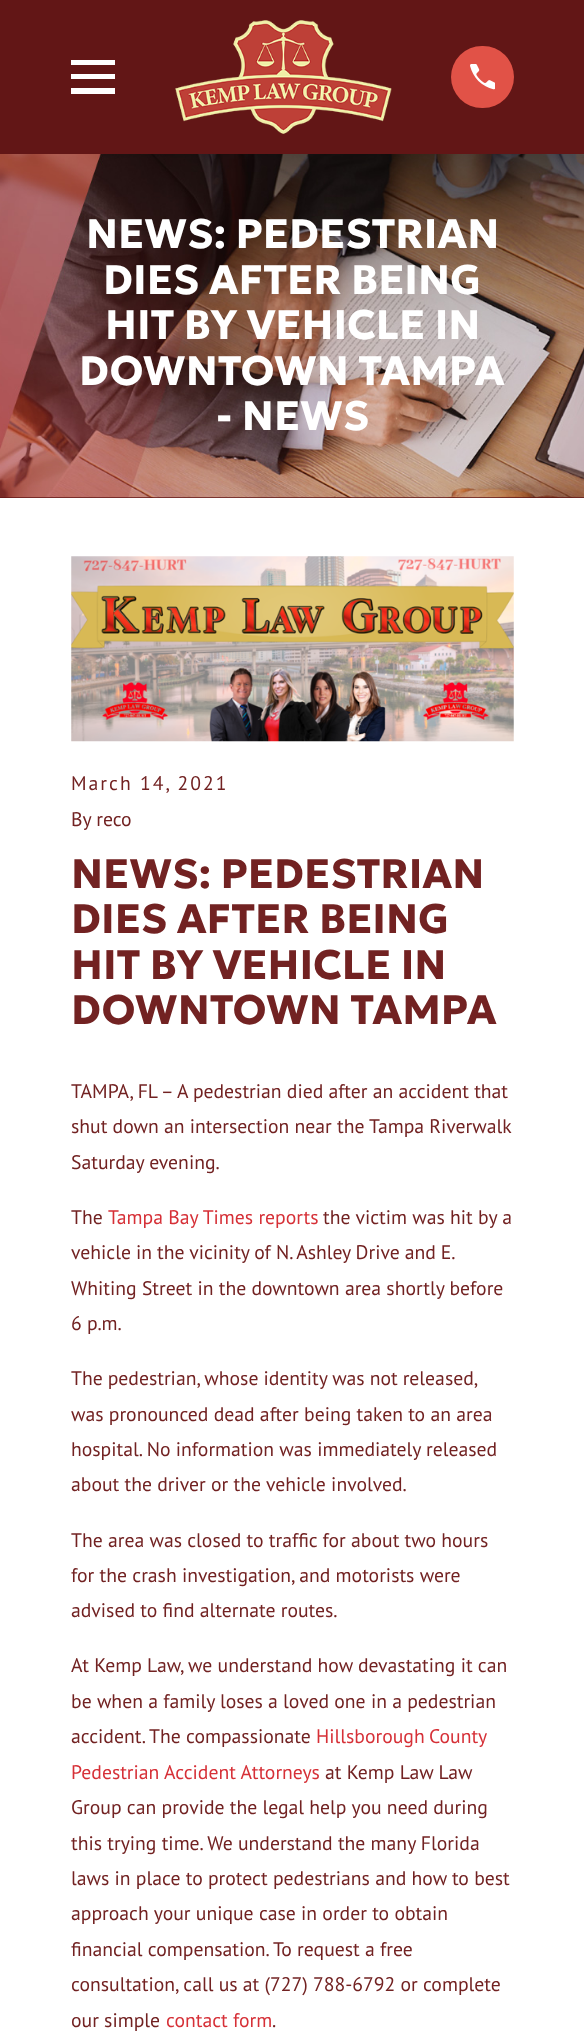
<svg xmlns="http://www.w3.org/2000/svg" width="584" height="2035">
<style>
.a{font:bold 41.25px Geologica;fill:#fff}
.b{font:19.7px PT Sans;letter-spacing:2px;fill:#722222}
.c{font:19.7px PT Sans;fill:#722222}
.d{font:bold 41.25px Geologica;fill:#722222}
.e{font:19.7px PT Sans;fill:#d63037}
</style>
<rect width="100%" height="100%" fill="#fff"/>
<path fill="#621616" d="M0 0h584v154H0z"/>
<path fill="#fff" d="M71 60v5h44v-5zm0 14v5h44v-5zm0 14v6h44v-6z"/>
<image href="1.png" x="175" y="20" width="217" height="114"/>
<rect fill="#e15247" x="451" y="46" width="63" height="62" rx="31"/>
<image href="2.png" x="470" y="64" width="25" height="26"/>
<path fill="#621616" d="M0 497h584v1H0z"/>
<image href="3.png" x="0" y="154" width="584" height="344"/>
<image href="4.png" x="71" y="556" width="443" height="186"/>
<text class="a" x="86" y="248">NEWS: PEDESTRIAN</text>
<text class="a" x="103" y="294">DIES AFTER BEING</text>
<text class="a" x="105" y="339">HIT BY VEHICLE IN</text>
<text class="a" x="79" y="385">DOWNTOWN TAMPA</text>
<text class="a" x="216" y="430">- NEWS</text>
<text class="b" x="71" y="790">March 14, 2021</text>
<text class="c" x="71" y="826">By reco</text>
<text class="d" x="71" y="888">NEWS: PEDESTRIAN</text>
<text class="d" x="71" y="933">DIES AFTER BEING</text>
<text class="d" x="71" y="979">HIT BY VEHICLE IN</text>
<text class="d" x="71" y="1024">DOWNTOWN TAMPA</text>
<text class="c" x="71" y="1098">TAMPA, FL – A pedestrian died after an accident that</text>
<text class="c" x="71" y="1133">shut down an intersection near the Tampa Riverwalk</text>
<text class="c" x="71" y="1169">Saturday evening.</text>
<text class="c" x="71" y="1224">The</text>
<text class="e" x="108" y="1224">Tampa Bay Times reports</text>
<text class="c" x="323" y="1224">the victim was hit by a</text>
<text class="c" x="71" y="1259" word-spacing="-0.25">vehicle in the vicinity of N. Ashley Drive and E.</text>
<text class="c" x="71" y="1295">Whiting Street in the downtown area shortly before</text>
<text class="c" x="71" y="1330">6 p.m.</text>
<text class="c" x="71" y="1385" word-spacing="-0.25">The pedestrian, whose identity was not released,</text>
<text class="c" x="71" y="1421">was pronounced dead after being taken to an area</text>
<text class="c" x="71" y="1456">hospital. No information was immediately released</text>
<text class="c" x="71" y="1491">about the driver or the vehicle involved.</text>
<text class="c" x="71" y="1547">The area was closed to traffic for about two hours</text>
<text class="c" x="71" y="1582">for the crash investigation, and motorists were</text>
<text class="c" x="71" y="1617">advised to find alternate routes.</text>
<text class="c" x="71" y="1672">At Kemp Law, we understand how devastating it can</text>
<text class="c" x="71" y="1708">be when a family loses a loved one in a pedestrian</text>
<text class="c" x="71" y="1743">accident. The compassionate</text>
<text class="e" x="316" y="1743" word-spacing="-1">Hillsborough County</text>
<text class="e" x="71" y="1779">Pedestrian Accident Attorneys</text>
<text class="c" x="325" y="1779">at Kemp Law Law</text>
<text class="c" x="71" y="1814">Group can provide the legal help you need during</text>
<text class="c" x="71" y="1850">this trying time. We understand the many Florida</text>
<text class="c" x="71" y="1885">laws in place to protect pedestrians and how to best</text>
<text class="c" x="71" y="1920">approach your unique case in order to obtain</text>
<text class="c" x="71" y="1956">financial compensation. To request a free</text>
<text class="c" x="71" y="1991">consultation, call us at (727) 788-6792 or complete</text>
<text class="c" x="71" y="2027">our simple</text>
<text class="e" x="166" y="2027">contact form</text>
<text class="c" x="272" y="2027">.</text>
</svg>
